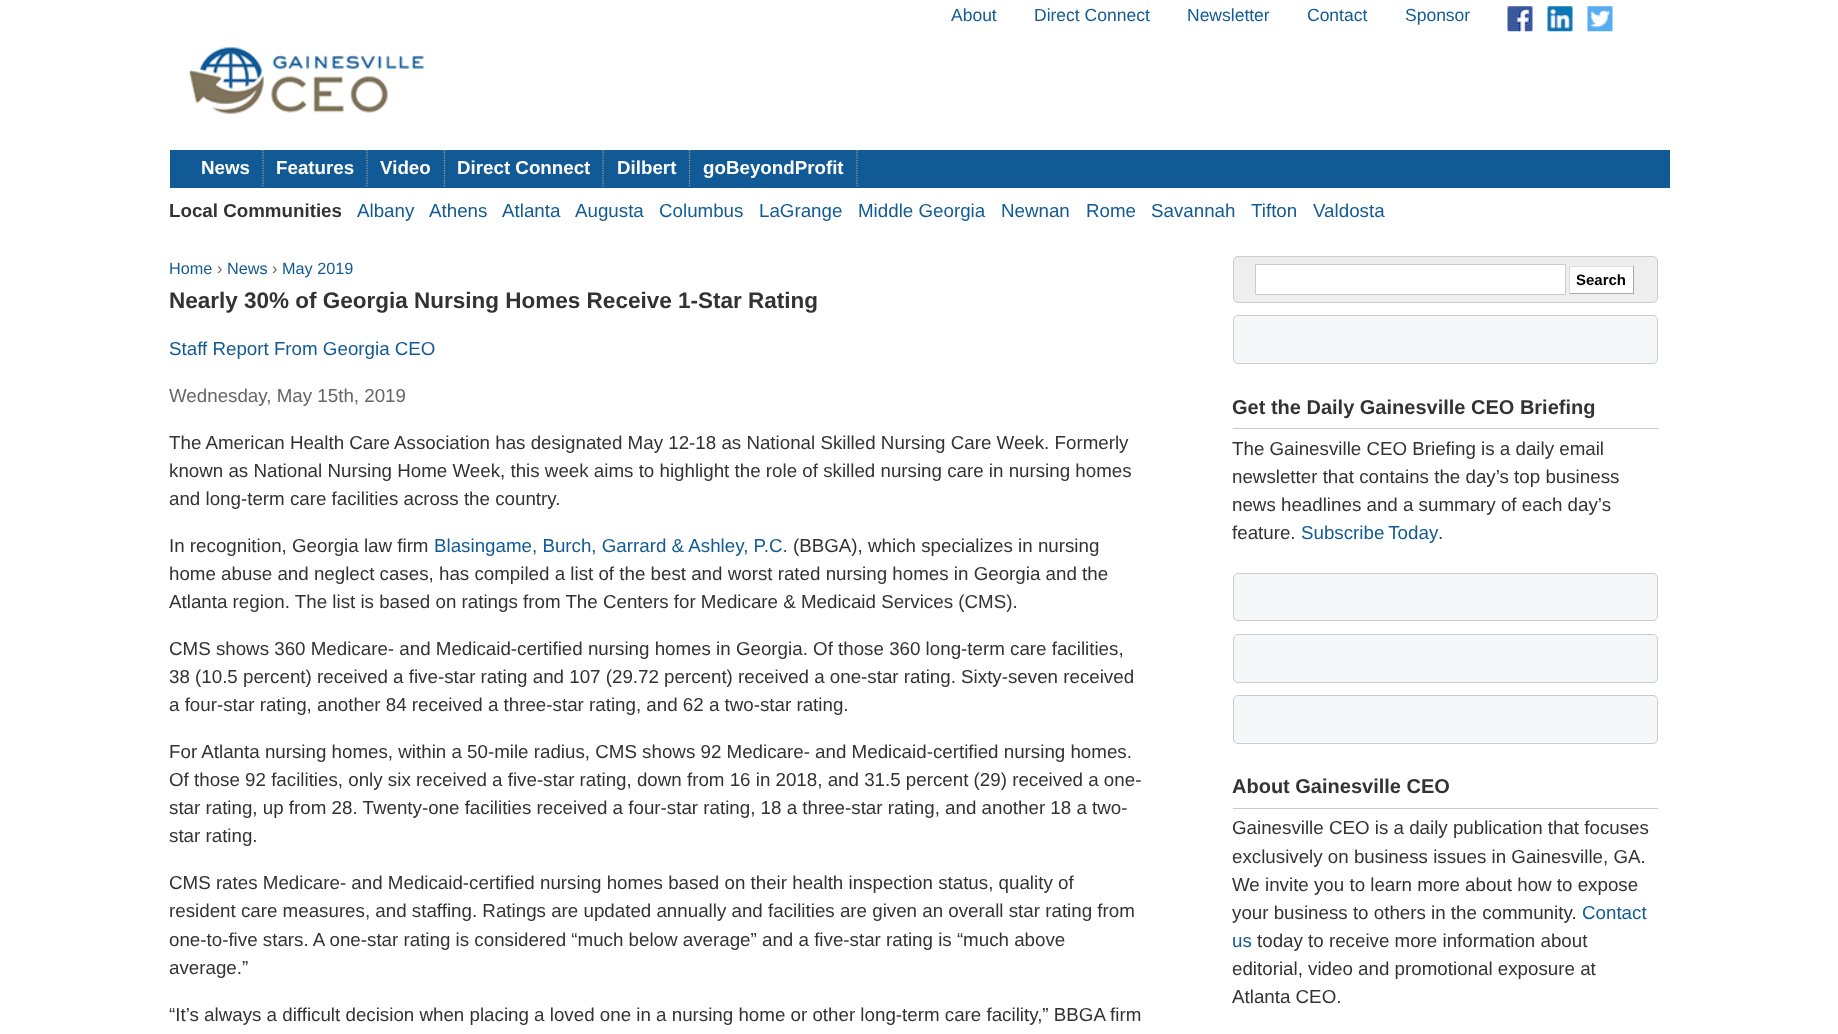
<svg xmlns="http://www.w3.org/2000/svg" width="1838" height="1034">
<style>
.a{font:17.5px Liberation Sans;fill:#125a95}
.b{font:bold 18.75px Liberation Sans;fill:#fff}
.c{font:bold 18.75px Liberation Sans;fill:#333}
.d{font:18.75px Liberation Sans;fill:#125a95}
.e{font:16.25px Liberation Sans;fill:#125a95}
.f{font:16.25px Liberation Sans;fill:#666}
.g{font:bold 22.5px Liberation Sans;fill:#333}
.h{font:18.75px Liberation Sans;fill:#666}
.i{font:18.75px Liberation Sans;fill:#333}
.j{font:bold 15px Liberation Sans;fill:#000}
.k{font:bold 20px Liberation Sans;fill:#333}
</style>
<rect width="100%" height="100%" fill="#fff"/>
<image href="1.png" x="1507" y="6" width="26" height="26"/>
<image href="2.png" x="1547" y="6" width="26" height="26"/>
<image href="3.png" x="1587" y="6" width="26" height="26"/>
<image href="4.png" x="188" y="46" width="236" height="68"/>
<path fill="#125a95" d="M170 150h1500v38H170z"/>
<path fill="none" stroke="#a1a1a1" stroke-width="1.2" stroke-dasharray="1.25 1.25" d="M263 150v37.5"/>
<path fill="none" stroke="#a1a1a1" stroke-width="1.2" stroke-dasharray="1.25 1.25" d="M367 150v37.5"/>
<path fill="none" stroke="#a1a1a1" stroke-width="1.2" stroke-dasharray="1.25 1.25" d="M444.5 150v37.5"/>
<path fill="none" stroke="#a1a1a1" stroke-width="1.2" stroke-dasharray="1.25 1.25" d="M603 150v37.5"/>
<path fill="none" stroke="#a1a1a1" stroke-width="1.2" stroke-dasharray="1.25 1.25" d="M689.5 150v37.5"/>
<path fill="none" stroke="#a1a1a1" stroke-width="1.2" stroke-dasharray="1.25 1.25" d="M857 150v37.5"/>
<rect fill="#eee" stroke="#ccc" x="1233.5" y="256.5" width="424" height="46" rx="4.5"/>
<path fill="#fff" stroke="#ccc" d="M1255.5 264.5h310v30H1255.5z"/>
<path fill="#fff" d="M1570 267h63v26H1570z"/>
<path fill="#ddd" d="M1569 266h65v1H1569z"/>
<path fill="#aaa" d="M1633 266h1v28H1633z"/>
<path fill="#aaa" d="M1569 293h65v1H1569z"/>
<path fill="#ddd" d="M1569 266h1v28H1569z"/>
<rect fill="#f5f7f9" stroke="#ccc" x="1233.5" y="315.5" width="424" height="48" rx="4.5"/>
<path fill="#ccc" d="M1233 428h425v1H1233z"/>
<rect fill="#f5f7f9" stroke="#ccc" x="1233.5" y="573.5" width="424" height="47" rx="4.5"/>
<rect fill="#f5f7f9" stroke="#ccc" x="1233.5" y="634.5" width="424" height="48" rx="4.5"/>
<rect fill="#f5f7f9" stroke="#ccc" x="1233.5" y="695.5" width="424" height="48" rx="4.5"/>
<path fill="#ccc" d="M1233 808h425v1H1233z"/>
<text class="a" x="951" y="21">About</text>
<text class="a" x="1034" y="21">Direct Connect</text>
<text class="a" x="1187" y="21">Newsletter</text>
<text class="a" x="1307" y="21">Contact</text>
<text class="a" x="1405" y="21">Sponsor</text>
<text class="b" x="201" y="174">News</text>
<text class="b" x="276" y="174">Features</text>
<text class="b" x="380" y="174">Video</text>
<text class="b" x="457" y="174">Direct Connect</text>
<text class="b" x="617" y="174">Dilbert</text>
<text class="b" x="703" y="174">goBeyondProfit</text>
<text class="c" x="169" y="217">Local Communities</text>
<text class="d" x="357" y="217">Albany</text>
<text class="d" x="429" y="217">Athens</text>
<text class="d" x="502" y="217">Atlanta</text>
<text class="d" x="575" y="217">Augusta</text>
<text class="d" x="659" y="217">Columbus</text>
<text class="d" x="759" y="217">LaGrange</text>
<text class="d" x="858" y="217">Middle Georgia</text>
<text class="d" x="1001" y="217">Newnan</text>
<text class="d" x="1086" y="217">Rome</text>
<text class="d" x="1151" y="217">Savannah</text>
<text class="d" x="1251" y="217">Tifton</text>
<text class="d" x="1313" y="217">Valdosta</text>
<text class="e" x="169" y="274">Home</text>
<text class="f" x="217" y="274">›</text>
<text class="e" x="227" y="274">News</text>
<text class="f" x="272" y="274">›</text>
<text class="e" x="282" y="274">May 2019</text>
<text class="g" x="169" y="308">Nearly 30% of Georgia Nursing Homes Receive 1-Star Rating</text>
<text class="d" x="169" y="355">Staff Report From Georgia CEO</text>
<text class="h" x="169" y="402">Wednesday, May 15th, 2019</text>
<text class="i" x="169" y="449">The American Health Care Association has designated May 12-18 as National Skilled Nursing Care Week. Formerly</text>
<text class="i" x="169" y="477">known as National Nursing Home Week, this week aims to highlight the role of skilled nursing care in nursing homes</text>
<text class="i" x="169" y="505">and long-term care facilities across the country.</text>
<text class="i" x="169" y="552">In recognition, Georgia law firm</text>
<text class="d" x="434" y="552">Blasingame, Burch, Garrard &amp; Ashley, P.C.</text>
<text class="i" x="793" y="552">(BBGA), which specializes in nursing</text>
<text class="i" x="169" y="580">home abuse and neglect cases, has compiled a list of the best and worst rated nursing homes in Georgia and the</text>
<text class="i" x="169" y="608">Atlanta region. The list is based on ratings from The Centers for Medicare &amp; Medicaid Services (CMS).</text>
<text class="i" x="169" y="655">CMS shows 360 Medicare- and Medicaid-certified nursing homes in Georgia. Of those 360 long-term care facilities,</text>
<text class="i" x="169" y="683">38 (10.5 percent) received a five-star rating and 107 (29.72 percent) received a one-star rating. Sixty-seven received</text>
<text class="i" x="169" y="711">a four-star rating, another 84 received a three-star rating, and 62 a two-star rating.</text>
<text class="i" x="169" y="758">For Atlanta nursing homes, within a 50-mile radius, CMS shows 92 Medicare- and Medicaid-certified nursing homes.</text>
<text class="i" x="169" y="786">Of those 92 facilities, only six received a five-star rating, down from 16 in 2018, and 31.5 percent (29) received a one-</text>
<text class="i" x="169" y="814">star rating, up from 28. Twenty-one facilities received a four-star rating, 18 a three-star rating, and another 18 a two-</text>
<text class="i" x="169" y="842">star rating.</text>
<text class="i" x="169" y="889">CMS rates Medicare- and Medicaid-certified nursing homes based on their health inspection status, quality of</text>
<text class="i" x="169" y="917">resident care measures, and staffing. Ratings are updated annually and facilities are given an overall star rating from</text>
<text class="i" x="169" y="946">one-to-five stars. A one-star rating is considered “much below average” and a five-star rating is “much above</text>
<text class="i" x="169" y="974">average.”</text>
<text class="i" x="169" y="1021">“It’s always a difficult decision when placing a loved one in a nursing home or other long-term care facility,” BBGA firm</text>
<text class="j" x="1576" y="285">Search</text>
<text class="k" x="1232" y="414">Get the Daily Gainesville CEO Briefing</text>
<text class="i" x="1232" y="455">The Gainesville CEO Briefing is a daily email</text>
<text class="i" x="1232" y="483">newsletter that contains the day’s top business</text>
<text class="i" x="1232" y="511">news headlines and a summary of each day’s</text>
<text class="i" x="1232" y="539">feature.</text>
<text class="d" x="1301" y="539" word-spacing="-1">Subscribe Today</text>
<text class="i" x="1438" y="539">.</text>
<text class="k" x="1232" y="793">About Gainesville CEO</text>
<text class="i" x="1232" y="834">Gainesville CEO is a daily publication that focuses</text>
<text class="i" x="1232" y="863">exclusively on business issues in Gainesville, GA.</text>
<text class="i" x="1232" y="891">We invite you to learn more about how to expose</text>
<text class="i" x="1232" y="919">your business to others in the community.</text>
<text class="d" x="1582" y="919">Contact</text>
<text class="d" x="1232" y="947">us</text>
<text class="i" x="1257" y="947">today to receive more information about</text>
<text class="i" x="1232" y="975">editorial, video and promotional exposure at</text>
<text class="i" x="1232" y="1003">Atlanta CEO.</text>
</svg>
